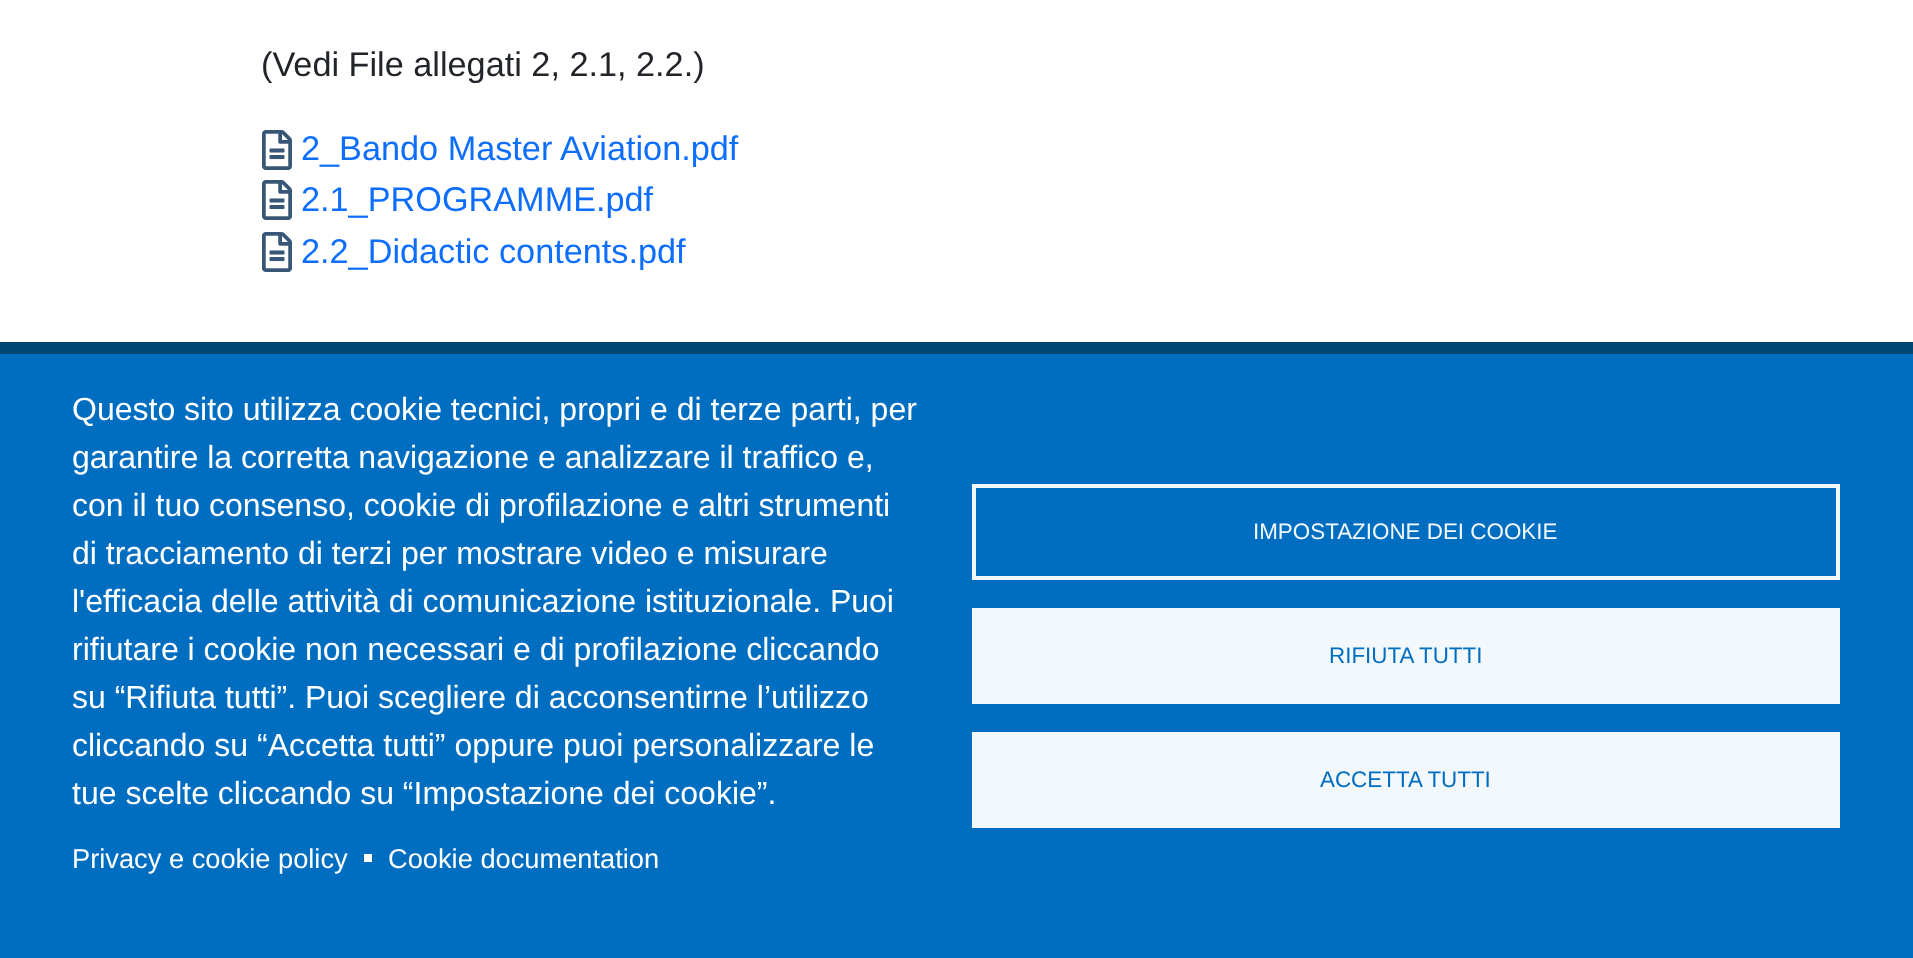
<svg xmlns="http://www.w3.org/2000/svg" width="1913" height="958">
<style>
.a{font:34.25px Liberation Sans;fill:#212529}
.b{font:34.25px Liberation Sans;fill:#0d6efd}
.c{font:32px Liberation Sans;fill:#fff}
.d{font:27.25px Liberation Sans;fill:#fff}
.e{font:22.4px Liberation Sans;fill:#f2f8fc}
.f{font:22.4px Liberation Sans;fill:#006ec0}
</style>
<rect width="100%" height="100%" fill="#fff"/>
<image href="1.png" x="262" y="130" width="30" height="40"/>
<image href="1.png" x="262" y="180" width="30" height="40"/>
<image href="1.png" x="262" y="232" width="30" height="40"/>
<path fill="#006ec0" d="M0 354h1913v604H0z"/>
<path fill="#fff" d="M364 854h8v8H364z"/>
<path fill="none" stroke="#f2f8fc" stroke-width="4" d="M974 486h864v92H974z"/>
<path fill="#f2f8fc" d="M972 608h868v96H972z"/>
<path fill="#f2f8fc" d="M972 732h868v96H972z"/>
<path fill="#004871" d="M0 342h1913v12H0z"/>
<text class="a" x="261" y="76">(Vedi File allegati 2, 2.1, 2.2.)</text>
<text class="b" x="301" y="160">2_Bando Master Aviation.pdf</text>
<text class="b" x="301" y="211">2.1_PROGRAMME.pdf</text>
<text class="b" x="301" y="263">2.2_Didactic contents.pdf</text>
<text class="c" x="72" y="420">Questo sito utilizza cookie tecnici, propri e di terze parti, per</text>
<text class="c" x="72" y="468">garantire la corretta navigazione e analizzare il traffico e,</text>
<text class="c" x="72" y="516">con il tuo consenso, cookie di profilazione e altri strumenti</text>
<text class="c" x="72" y="564">di tracciamento di terzi per mostrare video e misurare</text>
<text class="c" x="72" y="612">l'efficacia delle attività di comunicazione istituzionale. Puoi</text>
<text class="c" x="72" y="660">rifiutare i cookie non necessari e di profilazione cliccando</text>
<text class="c" x="72" y="708">su “Rifiuta tutti”. Puoi scegliere di acconsentirne l’utilizzo</text>
<text class="c" x="72" y="756">cliccando su “Accetta tutti” oppure puoi personalizzare le</text>
<text class="c" x="72" y="804">tue scelte cliccando su “Impostazione dei cookie”.</text>
<text class="d" x="72" y="868">Privacy e cookie policy</text>
<text class="d" x="388" y="868">Cookie documentation</text>
<text class="e" x="1253" y="539">IMPOSTAZIONE DEI COOKIE</text>
<text class="f" x="1329" y="663">RIFIUTA TUTTI</text>
<text class="f" x="1320" y="787">ACCETTA TUTTI</text>
</svg>
